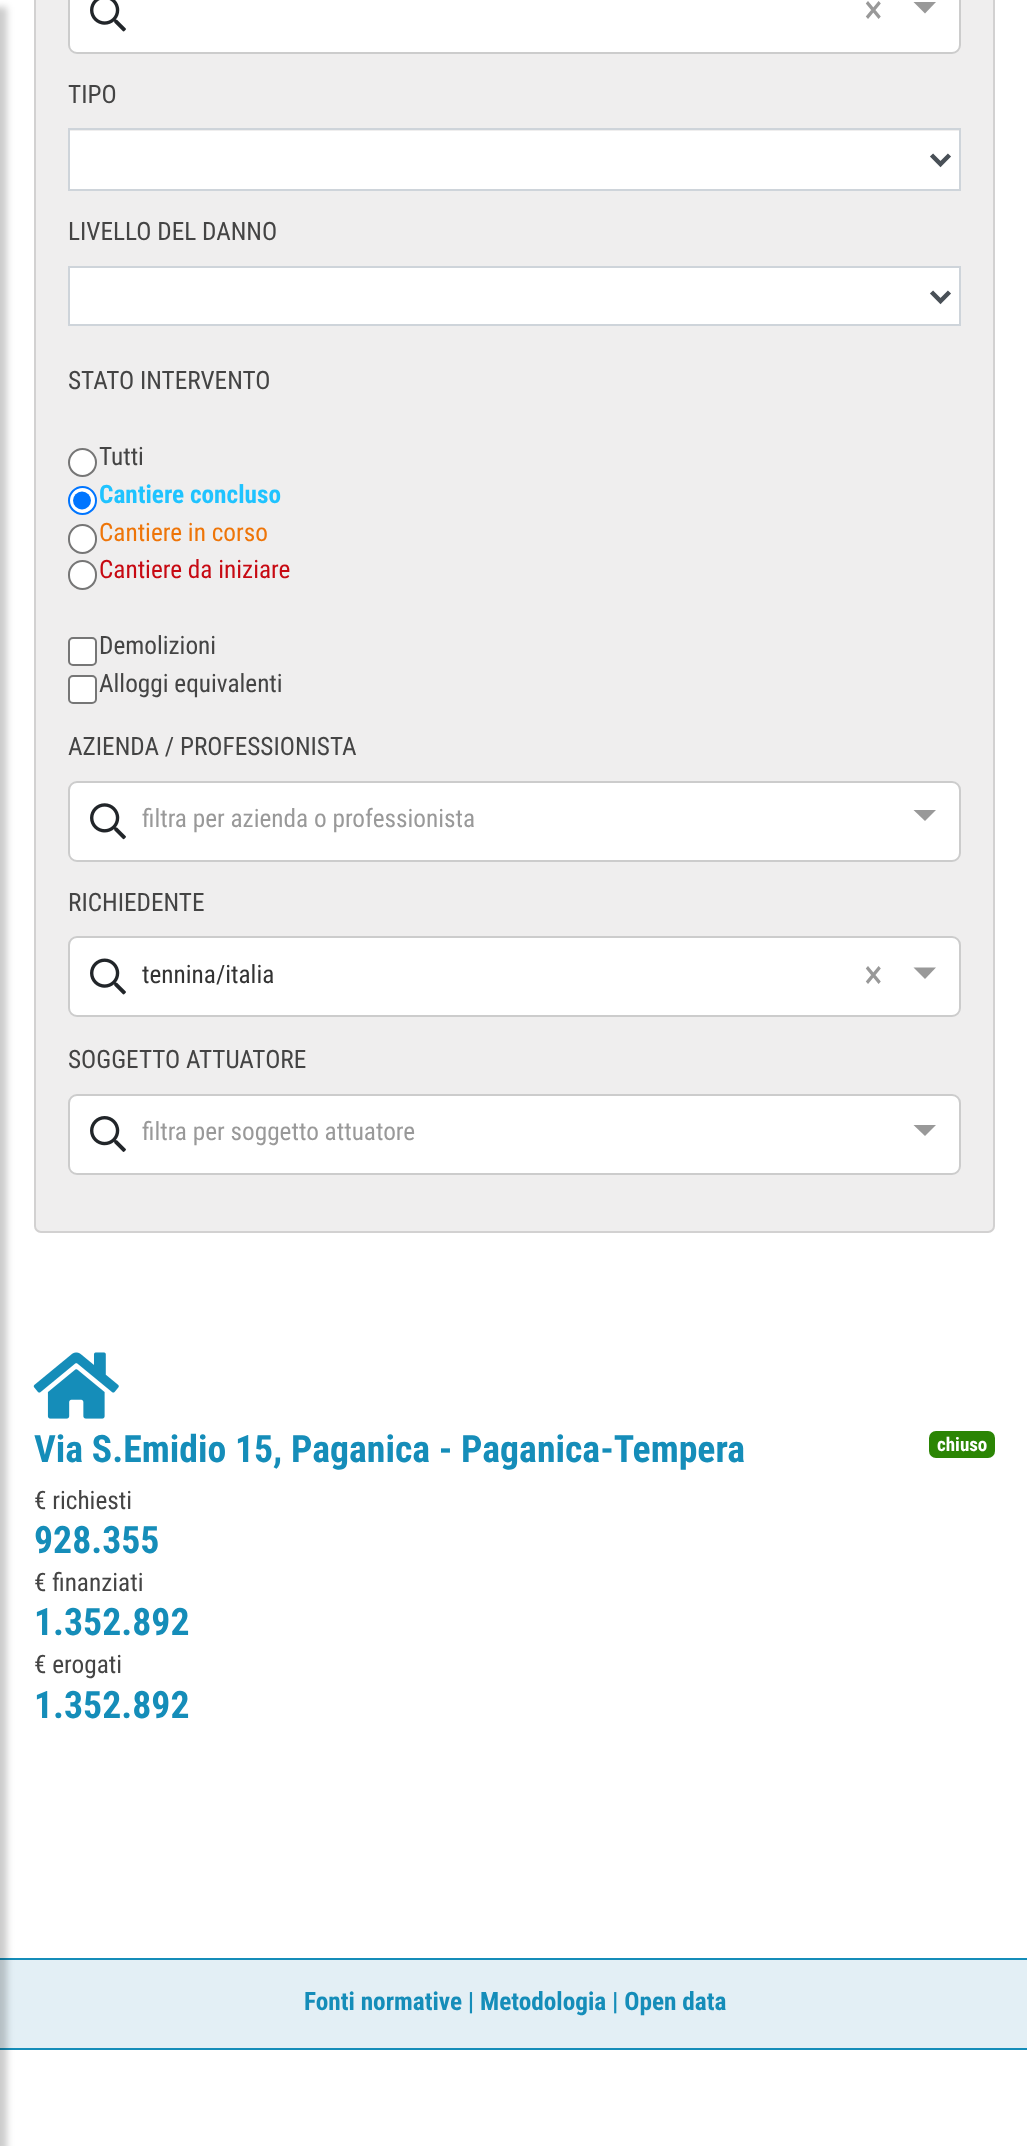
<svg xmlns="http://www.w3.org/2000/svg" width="1027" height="2146">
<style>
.a{font:40px Roboto Condensed;fill:#999}
.b{font:25.25px Roboto Condensed;fill:#444}
.c{font:bold 25.25px Roboto Condensed;fill:#1fc3ff}
.d{font:25.25px Roboto Condensed;fill:#ee7508}
.e{font:25.25px Roboto Condensed;fill:#c70912}
.f{font:25.25px Roboto Condensed;fill:#999}
.g{font:25.25px Roboto Condensed;fill:#333}
.h{font:bold 37.75px Roboto Condensed;fill:#158db9}
.i{font:bold 19px Roboto Condensed;fill:#fff}
.j{font:bold 25.25px Roboto Condensed;fill:#158db9}
</style>
<rect width="100%" height="100%" fill="#fff"/>
<path fill="#e3eff5" d="M0 1960h1027v88H0z"/>
<path fill="#158db9" d="M0 1958h1027v2H0z"/>
<path fill="#158db9" d="M0 2048h1027v2H0z"/>
<path fill="#00000033" filter="blur(3.5px)" d="M-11 7h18v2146H-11z"/>
<rect fill="#efeeee" x="34" y="-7" width="961" height="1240" rx="7"/>
<rect fill="none" stroke="#0000001f" stroke-width="2" x="35" y="-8" width="959" height="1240" rx="6"/>
<rect fill="#fff" stroke="#ccc" stroke-width="2" x="69" y="-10" width="891" height="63" rx="8"/>
<image href="1.png" x="90" y="0" width="36" height="32"/>
<path fill="#999" d="M913.5 2h22.5l-11 11.5z"/>
<path fill="#fff" d="M70 131h889v58H70z"/>
<path fill="none" stroke="#ced4da" stroke-width="2" d="M69 129h891v61H69z"/>
<path fill="none" stroke="#495057" stroke-width="4.5" d="M931.5 155l9 9l9-9"/>
<path fill="#fff" stroke="#ced4da" stroke-width="2" d="M69 267h891v58H69z"/>
<path fill="none" stroke="#495057" stroke-width="4.5" d="M931.5 292l9 9l9-9"/>
<circle fill="#fff" stroke="#767676" stroke-width="2" cx="82.5" cy="462.5" r="13.5"/>
<circle fill="#fff" stroke="#0075ff" stroke-width="2" cx="82.5" cy="500.5" r="13.5"/>
<circle fill="#0075ff" cx="82" cy="500.5" r="9"/>
<rect fill="#fff" stroke="#767676" stroke-width="2" x="69" y="525" width="27" height="28" rx="13.5"/>
<rect fill="#fff" stroke="#767676" stroke-width="2" x="69" y="561" width="27" height="28" rx="13.5"/>
<rect fill="#fff" stroke="#767676" stroke-width="2" x="69" y="638" width="27" height="27" rx="4"/>
<rect fill="#fff" stroke="#767676" stroke-width="2" x="69" y="676" width="27" height="27" rx="4"/>
<rect fill="#fff" stroke="#ccc" stroke-width="2" x="69" y="782" width="891" height="79" rx="8"/>
<image href="2.png" x="90" y="803" width="36" height="37"/>
<path fill="#999" d="M913.5 810h22.5l-11 11z"/>
<rect fill="#fff" stroke="#ccc" stroke-width="2" x="69" y="937" width="891" height="79" rx="8"/>
<image href="3.png" x="90" y="958" width="36" height="37"/>
<path fill="#999" d="M913.5 967.5h22.5l-11 11.5z"/>
<rect fill="#fff" stroke="#ccc" stroke-width="2" x="69" y="1095" width="891" height="79" rx="8"/>
<image href="4.png" x="90" y="1116" width="36" height="36"/>
<path fill="#999" d="M913.5 1125h22.5l-11 11z"/>
<image href="5.png" x="33" y="1352" width="86" height="67"/>
<rect fill="#2b8504" x="929" y="1431" width="66" height="27" rx="7"/>
<text class="a" x="864" y="23">×</text>
<text class="b" x="68" y="103">TIPO</text>
<text class="b" x="68" y="240">LIVELLO DEL DANNO</text>
<text class="b" x="68" y="389">STATO INTERVENTO</text>
<text class="b" x="99" y="465">Tutti</text>
<text class="c" x="99" y="503">Cantiere concluso</text>
<text class="d" x="99" y="541">Cantiere in corso</text>
<text class="e" x="99" y="578">Cantiere da iniziare</text>
<text class="b" x="99" y="654">Demolizioni</text>
<text class="b" x="99" y="692">Alloggi equivalenti</text>
<text class="b" x="68" y="755">AZIENDA / PROFESSIONISTA</text>
<text class="f" x="142" y="827">filtra per azienda o professionista</text>
<text class="b" x="68" y="911">RICHIEDENTE</text>
<text class="g" x="142" y="983">tennina/italia</text>
<text class="a" x="864" y="988">×</text>
<text class="b" x="68" y="1068">SOGGETTO ATTUATORE</text>
<text class="f" x="142" y="1140">filtra per soggetto attuatore</text>
<text class="h" x="34" y="1462">Via S.Emidio 15, Paganica - Paganica-Tempera</text>
<text class="i" x="937" y="1451">chiuso</text>
<text class="b" x="34" y="1509">€ richiesti</text>
<text class="h" x="34" y="1553">928.355</text>
<text class="b" x="34" y="1591">€ finanziati</text>
<text class="h" x="34" y="1635">1.352.892</text>
<text class="b" x="34" y="1673">€ erogati</text>
<text class="h" x="34" y="1718">1.352.892</text>
<text class="j" x="304" y="2010">Fonti normative | Metodologia | Open data</text>
</svg>
